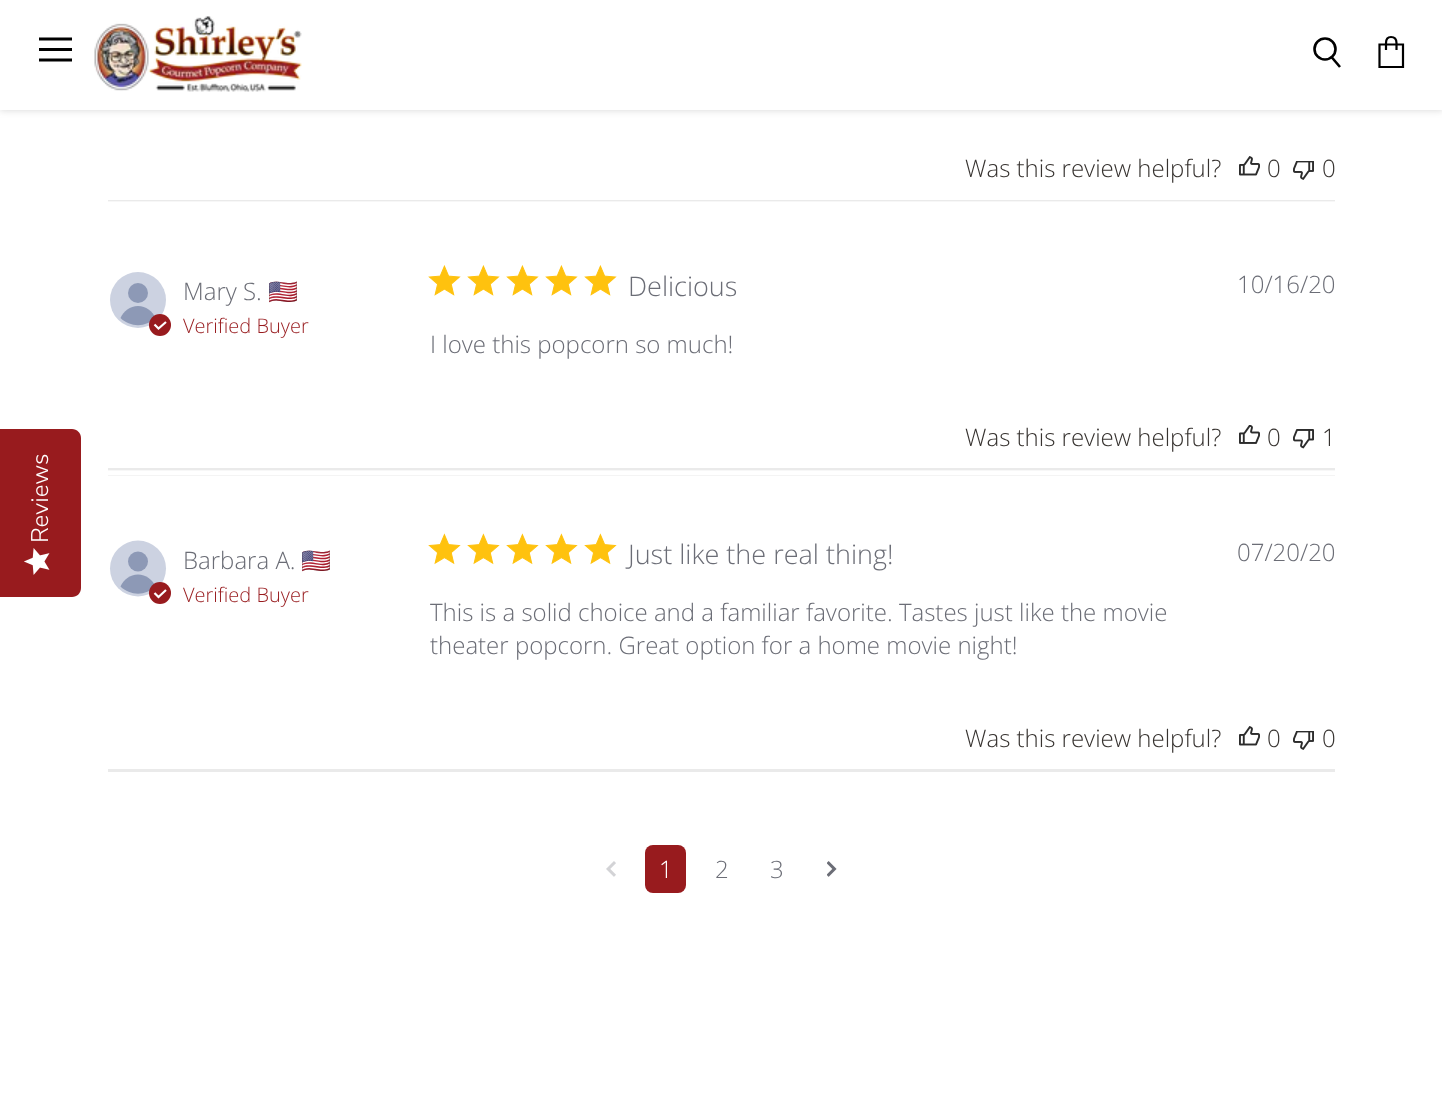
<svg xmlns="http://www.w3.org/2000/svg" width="1442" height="1106">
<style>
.a{font:300 24px Nunito Sans;fill:#fff}
.b{font:300 24px Open Sans;fill:#373330}
.c{font:300 24px Open Sans;fill:#6b6d76}
.d{font:24px Noto Color Emoji;fill:#6b6d76}
.e{font:300 20px Open Sans;fill:#981b1e}
.f{font:300 27px Open Sans;fill:#6b6d76}
.g{font:300 24px Open Sans;fill:#fff}
</style>
<rect width="100%" height="100%" fill="#fff"/>
<path fill="#7c7c7c40" filter="blur(3px)" d="M0 2h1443v109H0z"/>
<path fill="#fff" d="M0 0h1442v110H0z"/>
<path fill="none" stroke="#000" stroke-width="3" stroke-linecap="square" stroke-linejoin="round" d="M70.5 39h-30"/>
<path fill="#000" d="M39 48h33v3H39z"/>
<path fill="none" stroke="#000" stroke-width="3" stroke-linecap="square" stroke-linejoin="round" d="M70.5 60h-30"/>
<image href="1.png" x="94" y="16" width="208" height="76"/>
<path fill="none" stroke="#000" stroke-width="2.6" d="M1340 67l-8.5-10"/>
<circle fill="none" stroke="#000" stroke-width="2.6" cx="1325" cy="49" r="10.5"/>
<path fill="none" stroke="#000" stroke-width="2.2" d="M1379.5 44.5h23.5v22.5h-23.5zm17 5.5v-7c0-4.5-2.5-6-5.5-6c-2.5 0-5 1.5-5 6v7"/>
<path fill="#981b1e" d="M0 597v-168h72c5 0 9 4 9 9v150c0 5-4 9-9 9z"/>
<image href="2.png" x="24" y="548" width="26" height="27"/>
<image href="3.png" x="1239" y="156" width="21" height="20"/>
<image href="4.png" x="1293" y="161" width="21" height="19"/>
<image href="5.png" x="108" y="200" width="1227" height="2"/>
<circle fill="#ccd2e1" cx="138" cy="300" r="28"/>
<circle fill="#8d99b6" cx="138" cy="293" r="10"/>
<path fill="#8d99b6" d="M138 306c8 0 14.5 5 17.5 12c-9.5 9.5-25.5 9.5-35 0c3-7 9.5-12 17.5-12z"/>
<circle fill="#981b1e" cx="160" cy="325" r="11"/>
<path fill="none" stroke="#fff" stroke-width="2.2" d="M154.5 324.5l4 4l7.5-6.5"/>
<image href="6.png" x="428" y="265" width="33" height="31"/>
<image href="6.png" x="467" y="265" width="33" height="31"/>
<image href="6.png" x="506" y="265" width="33" height="31"/>
<image href="6.png" x="545" y="265" width="33" height="31"/>
<image href="6.png" x="584" y="265" width="33" height="31"/>
<image href="7.png" x="1239" y="425" width="21" height="19"/>
<image href="8.png" x="1293" y="429" width="21" height="20"/>
<image href="9.png" x="108" y="468" width="1227" height="8"/>
<circle fill="#ccd2e1" cx="138" cy="568.5" r="28"/>
<circle fill="#8d99b6" cx="138" cy="561.5" r="10"/>
<path fill="#8d99b6" d="M138 574.5c8 0 14.5 5 17.5 12c-9.5 9.5-25.5 9.5-35 0c3-7 9.5-12 17.5-12z"/>
<circle fill="#981b1e" cx="160" cy="593" r="11"/>
<path fill="none" stroke="#fff" stroke-width="2.2" d="M154.5 593l4 4l7.5-7"/>
<image href="10.png" x="428" y="533" width="33" height="32"/>
<image href="10.png" x="467" y="533" width="33" height="32"/>
<image href="10.png" x="506" y="533" width="33" height="32"/>
<image href="10.png" x="545" y="533" width="33" height="32"/>
<image href="10.png" x="584" y="533" width="33" height="32"/>
<image href="3.png" x="1239" y="726" width="21" height="20"/>
<image href="4.png" x="1293" y="731" width="21" height="19"/>
<path fill="#eaeaea" d="M108 769h1227v3H108z"/>
<image href="11.png" x="606" y="861" width="10" height="16"/>
<rect fill="#981b1e" x="645" y="845" width="41" height="48" rx="8"/>
<image href="12.png" x="827" y="861" width="10" height="16"/>
<text class="a" x="48" y="543" transform="rotate(-90 48 543)">Reviews</text>
<text class="b" x="965" y="177">Was this review helpful?</text>
<text class="b" x="1267" y="177">0</text>
<text class="b" x="1322" y="177">0</text>
<text class="c" x="183" y="300">Mary S.</text>
<text class="d" x="268" y="300">🇺🇸</text>
<text class="e" x="183" y="333">Verified Buyer</text>
<text class="f" x="628" y="296">Delicious</text>
<text class="c" x="430" y="353">I love this popcorn so much!</text>
<text class="c" x="1237" y="293">10/16/20</text>
<text class="b" x="965" y="446">Was this review helpful?</text>
<text class="b" x="1267" y="446">0</text>
<text class="b" x="1322" y="446">1</text>
<text class="c" x="183" y="569">Barbara A.</text>
<text class="d" x="301" y="569">🇺🇸</text>
<text class="e" x="183" y="602">Verified Buyer</text>
<text class="f" x="628" y="564">Just like the real thing!</text>
<text class="c" x="430" y="621">This is a solid choice and a familiar favorite. Tastes just like the movie</text>
<text class="c" x="430" y="654">theater popcorn. Great option for a home movie night!</text>
<text class="c" x="1237" y="561">07/20/20</text>
<text class="b" x="965" y="747">Was this review helpful?</text>
<text class="b" x="1267" y="747">0</text>
<text class="b" x="1322" y="747">0</text>
<text class="g" x="659" y="878">1</text>
<text class="c" x="715" y="878">2</text>
<text class="c" x="770" y="878">3</text>
</svg>
